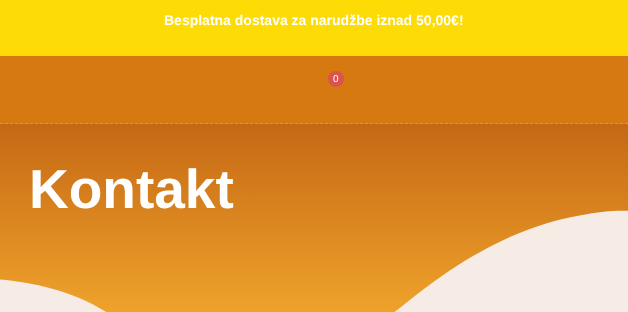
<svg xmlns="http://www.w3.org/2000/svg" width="628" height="312">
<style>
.a{font:bold 14px Liberation Sans;fill:#fff}
.b{font:10px Liberation Sans;fill:#fff}
.c{font:bold 55px Liberation Sans;fill:#fff}
</style>
<defs>
<linearGradient id="g1" gradientUnits="userSpaceOnUse" x1="314" y1="-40" x2="314" y2="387"><stop offset="0" stop-color="#a13502"/><stop offset="1" stop-color="#ffba33"/></linearGradient>
</defs>
<rect width="100%" height="100%" fill="#fff"/>
<path fill="#fddb05" d="M0 0h628v56H0z"/>
<path fill="#d67910" d="M0 56h628v68H0z"/>
<path fill="none" stroke="#de9440" stroke-dasharray="3 2" d="M0 123.5h628"/>
<circle fill="#d9534f" cx="336" cy="79" r="8"/>
<path fill="url(#g1)" d="M0 124h628v188H0z"/>
<path fill="#f6ece5" d="M240 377c22 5 49-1 72-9c22-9 66-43 94-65c72-58 126-80 182-89c22-4 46-6 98 4c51 11 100 46 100 46v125h-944v-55c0 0 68-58 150-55c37 2 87 12 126 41c20 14 49 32 75 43c26 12 38 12 47 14z"/>
<text class="a" x="164" y="25">Besplatna dostava za narudžbe iznad 50,00€!</text>
<text class="b" x="333" y="82">0</text>
<text class="c" x="29" y="208">Kontakt</text>
</svg>
